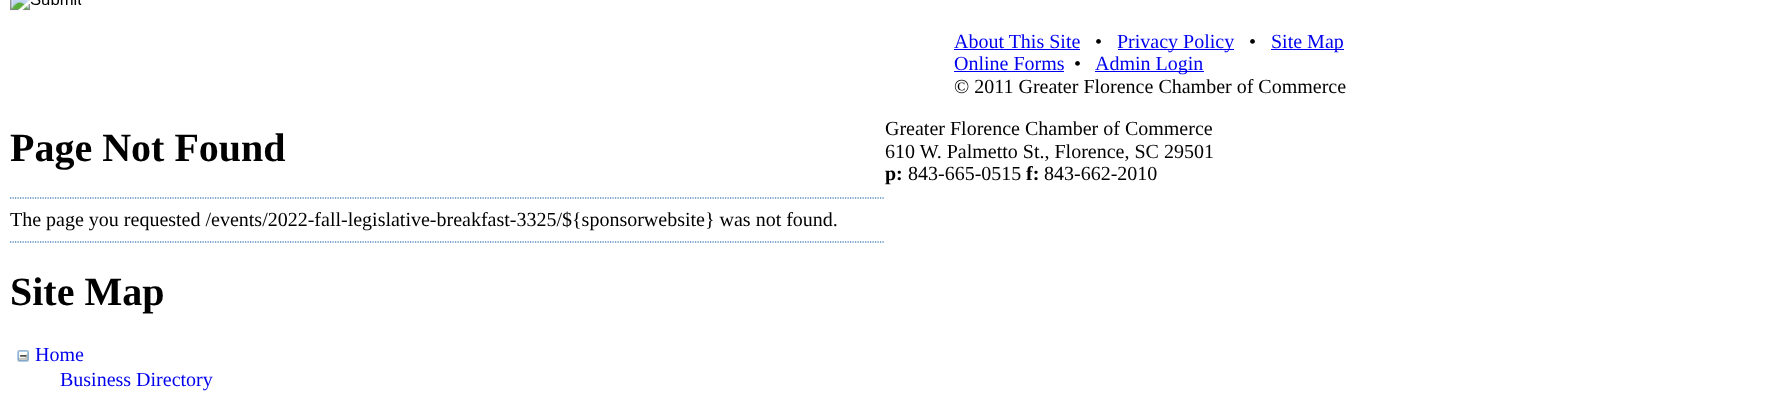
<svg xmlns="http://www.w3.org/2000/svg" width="1776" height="406">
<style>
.a{font:20px Liberation Serif;fill:#00e}
.b{font:20px Liberation Serif;fill:#000}
.c{font:bold 20px Liberation Serif;fill:#000}
.d{font:bold 40px Liberation Serif;fill:#000}
</style>
<rect width="100%" height="100%" fill="#fff"/>
<image href="1.png" x="10" y="0" width="72" height="11"/>
<path fill="#00e" d="M954 49h126v1H954z"/>
<path fill="#00e" d="M1118 49h116v1H1118z"/>
<path fill="#00e" d="M1271 49h73v1H1271z"/>
<path fill="#00e" d="M954 71h110v1H954z"/>
<path fill="#00e" d="M1095 71h109v1H1095z"/>
<path fill="none" stroke="#0256a2" stroke-width="1.2" stroke-dasharray="1.25 1.25" d="M10 198h875"/>
<path fill="none" stroke="#0256a2" stroke-width="1.2" stroke-dasharray="1.25 1.25" d="M10 242h875"/>
<image href="2.png" x="17" y="350" width="12" height="12"/>
<text class="a" x="954" y="48">About This Site</text>
<text class="b" x="1095" y="48">•</text>
<text class="a" x="1117" y="48">Privacy Policy</text>
<text class="b" x="1249" y="48">•</text>
<text class="a" x="1271" y="48">Site Map</text>
<text class="a" x="954" y="70">Online Forms</text>
<text class="b" x="1074" y="70">•</text>
<text class="a" x="1095" y="70">Admin Login</text>
<text class="b" x="954" y="93">© 2011 Greater Florence Chamber of Commerce</text>
<text class="b" x="885" y="135">Greater Florence Chamber of Commerce</text>
<text class="b" x="885" y="158">610 W. Palmetto St., Florence, SC 29501</text>
<text class="c" x="885" y="180">p:</text>
<text class="b" x="908" y="180">843-665-0515</text>
<text class="c" x="1026" y="180">f:</text>
<text class="b" x="1044" y="180">843-662-2010</text>
<text class="d" x="10" y="161">Page Not Found</text>
<text class="b" x="10" y="226">The page you requested /events/2022-fall-legislative-breakfast-3325/${sponsorwebsite} was not found.</text>
<text class="d" x="10" y="305">Site Map</text>
<text class="a" x="35" y="361">Home</text>
<text class="a" x="60" y="386">Business Directory</text>
</svg>
